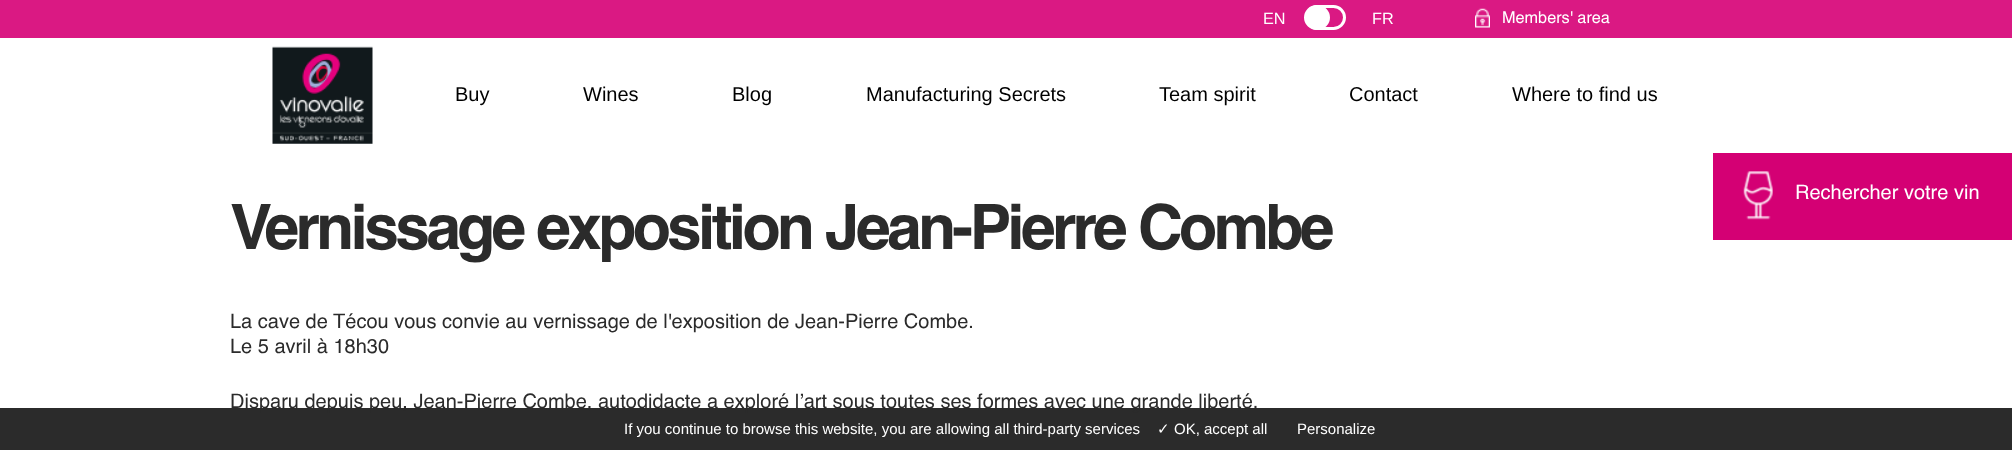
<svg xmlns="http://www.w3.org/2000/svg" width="2012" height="450">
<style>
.a{font:16.25px Liberation Sans;fill:#fff}
.b{font:16.25px Helvetica;fill:#fff}
.c{font:20px Liberation Sans;fill:#000}
.d{font:20px Helvetica;fill:#fff}
.e{font:bold 62.5px Helvetica;letter-spacing:-3.75px;fill:#2b2b2b}
.f{font:20px Helvetica;fill:#2b2b2b}
.g{font:15px Liberation Sans;fill:#fff}
.h{font:15px DejaVu Sans;fill:#fff}
</style>
<rect width="100%" height="100%" fill="#fff"/>
<path fill="#da1983" d="M0 0h2012v38H0z"/>
<circle fill="#fff" stroke="#fff" stroke-width="3" cx="1317.5" cy="17.5" r="11"/>
<rect fill="none" stroke="#fff" stroke-width="3" x="1305.5" y="6.5" width="39" height="22" rx="11"/>
<image href="1.png" x="1475" y="8" width="15" height="20"/>
<image href="2.png" x="272" y="46" width="101" height="98"/>
<path fill="#d40074" d="M1713 153h299v87H1713z"/>
<image href="3.png" x="1743" y="171" width="30" height="49"/>
<path fill="#2b2b2b" d="M0 408h2012v42H0z"/>
<text class="a" x="1263" y="24">EN</text>
<text class="a" x="1372" y="24">FR</text>
<text class="b" x="1502" y="23">Members' area</text>
<text class="c" x="455" y="101">Buy</text>
<text class="c" x="583" y="101">Wines</text>
<text class="c" x="732" y="101">Blog</text>
<text class="c" x="866" y="101">Manufacturing Secrets</text>
<text class="c" x="1159" y="101">Team spirit</text>
<text class="c" x="1349" y="101">Contact</text>
<text class="c" x="1512" y="101">Where to find us</text>
<text class="d" x="1795" y="199">Rechercher votre vin</text>
<text class="e" x="230" y="249">Vernissage exposition Jean-Pierre Combe</text>
<text class="f" x="230" y="328">La cave de Técou vous convie au vernissage de l'exposition de Jean-Pierre Combe.</text>
<text class="f" x="230" y="353">Le 5 avril à 18h30</text>
<text class="f" x="230" y="408">Disparu depuis peu, Jean-Pierre Combe, autodidacte a exploré l’art sous toutes ses formes avec une grande liberté.</text>
<text class="g" x="624" y="434">If you continue to browse this website, you are allowing all third-party services</text>
<text class="h" x="1157" y="434">✓</text>
<text class="g" x="1174" y="434">OK, accept all</text>
<text class="g" x="1297" y="434">Personalize</text>
</svg>
